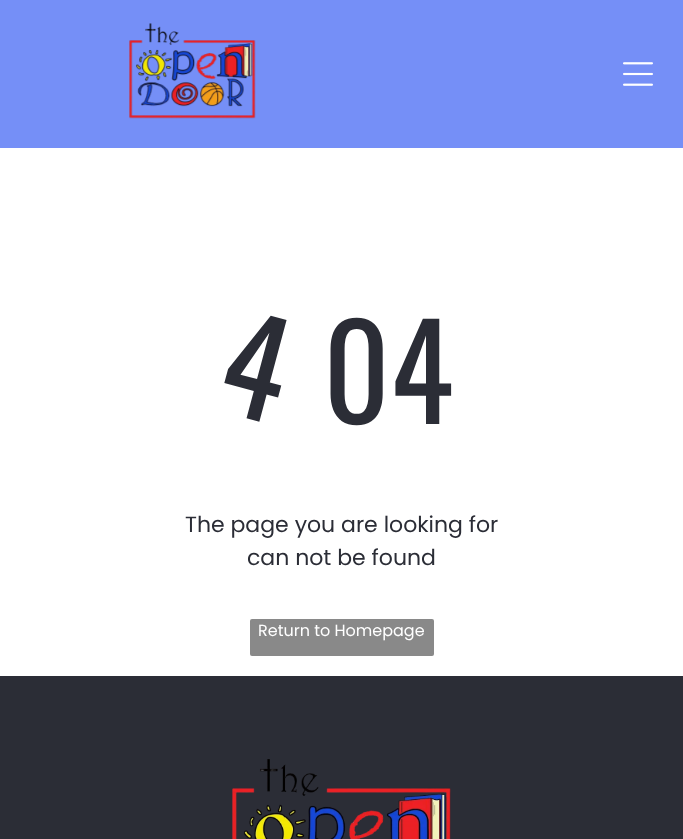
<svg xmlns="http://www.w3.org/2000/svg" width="683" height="839">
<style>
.a{font:130px Oswald;fill:#2b2d36}
.b{font:22px Poppins;fill:#2b2d36}
.c{font:16px Poppins;fill:#fff}
</style>
<rect width="100%" height="100%" fill="#fff"/>
<path fill="#758ff7" d="M0 0h683v148H0z"/>
<image href="1.png" x="129" y="23" width="127" height="96"/>
<image href="2.png" x="623" y="62" width="30" height="24"/>
<rect fill="#898989" x="250" y="619" width="184" height="37" rx="2"/>
<path fill="#2b2d36" d="M0 676h683v163H0z"/>
<image href="3.png" x="232" y="759" width="219" height="80"/>
<text class="a" x="212" y="409" transform="rotate(15 212 409)">4</text>
<text class="a" x="323" y="424">04</text>
<text class="b" x="185" y="532">The page you are looking for</text>
<text class="b" x="247" y="565">can not be found</text>
<text class="c" x="258" y="636">Return to Homepage</text>
</svg>
